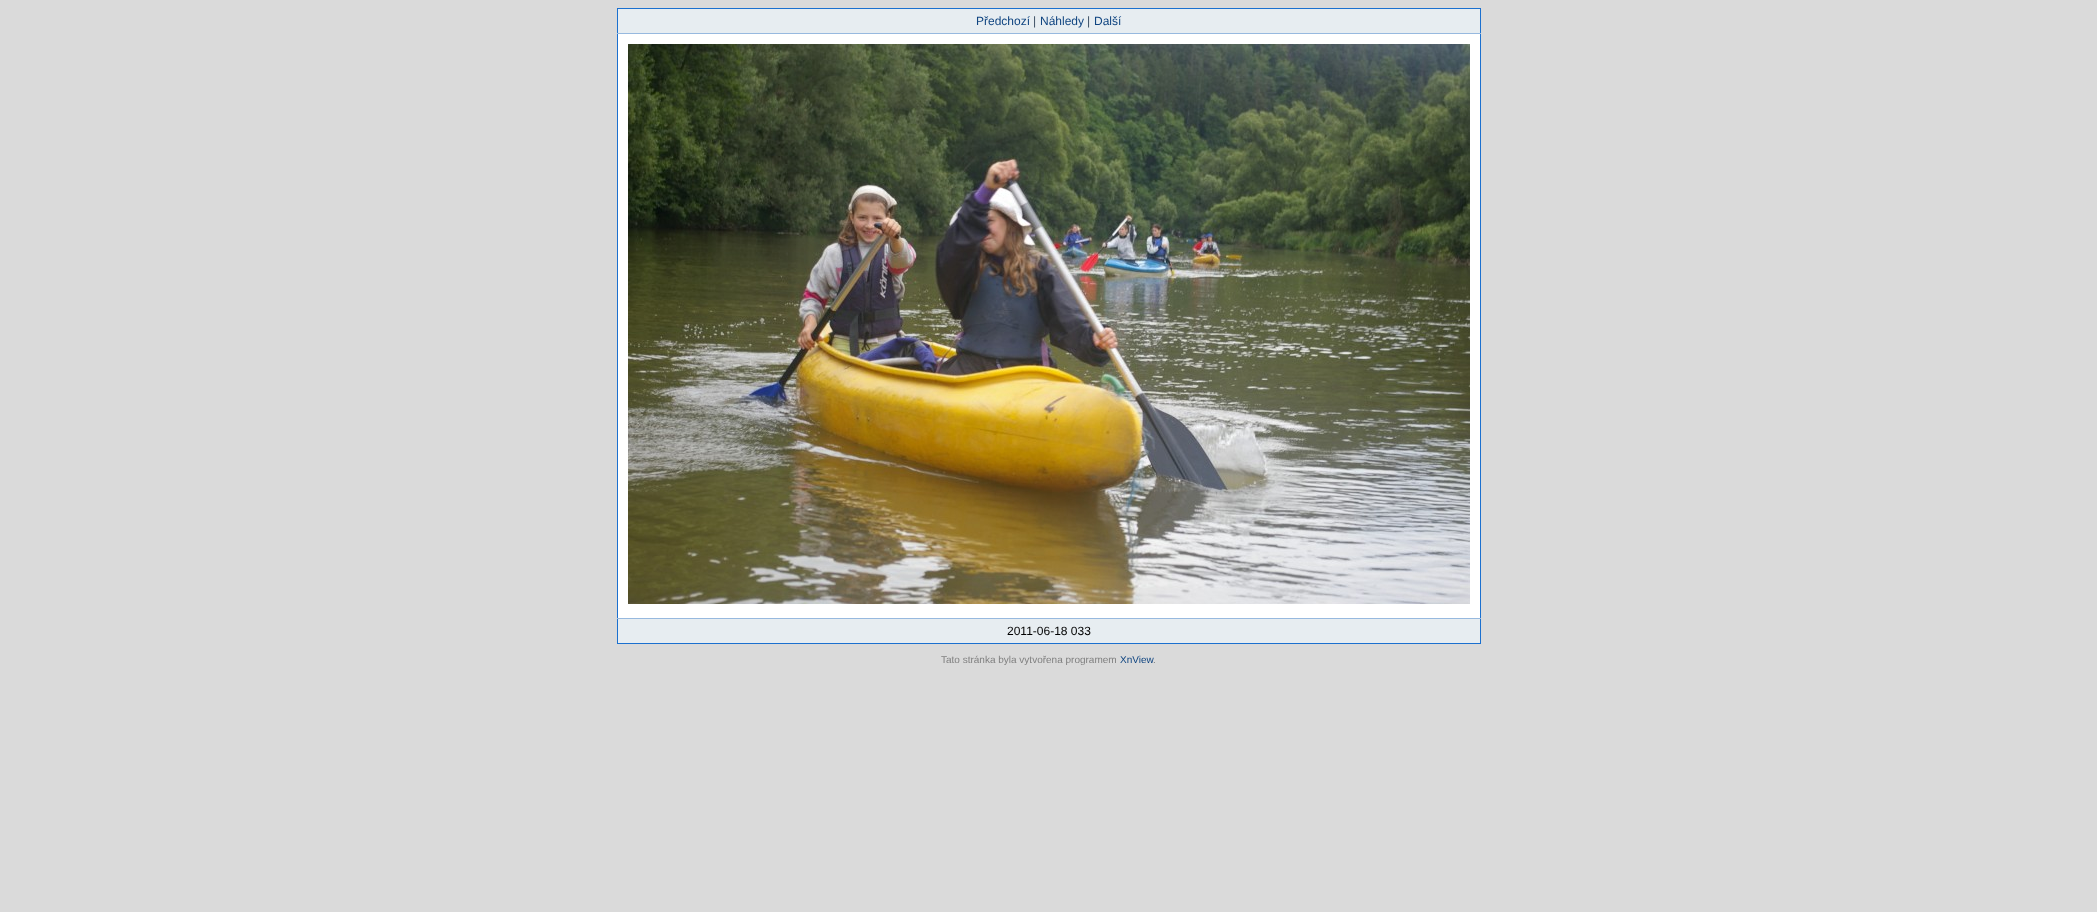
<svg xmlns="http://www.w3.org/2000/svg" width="2097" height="912">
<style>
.a{font:12px Liberation Sans;fill:#104581}
.b{font:12px Liberation Sans;fill:#3c4f64}
.c{font:12px Liberation Sans;fill:#000}
.d{font:10px Liberation Sans;fill:#808080}
.e{font:10px Liberation Sans;fill:#104581}
</style>
<rect width="100%" height="100%" fill="#dadada"/>
<path fill="#fff" d="M618 34h862v584H618z"/>
<path fill="#1b70cf" d="M617 8h864v1H617z"/>
<path fill="#1b70cf" d="M1480 8h1v636H1480z"/>
<path fill="#1b70cf" d="M617 643h864v1H617z"/>
<path fill="#1b70cf" d="M617 8h1v636H617z"/>
<path fill="#e7edf1" d="M618 9h862v24H618z"/>
<path fill="#97b9df" d="M617 33h864v1H617z"/>
<image href="1.png" x="628" y="44" width="842" height="560"/>
<path fill="#e7edf1" d="M618 619h862v24H618z"/>
<path fill="#97b9df" d="M617 618h864v1H617z"/>
<text class="a" x="976" y="25">Předchozí</text>
<text class="b" x="1033" y="25">|</text>
<text class="a" x="1040" y="25">Náhledy</text>
<text class="b" x="1087" y="25">|</text>
<text class="a" x="1094" y="25">Další</text>
<text class="c" x="1007" y="635">2011-06-18 033</text>
<text class="d" x="941" y="663">Tato stránka byla vytvořena programem</text>
<text class="e" x="1120" y="663">XnView</text>
<text class="d" x="1153" y="663">.</text>
</svg>
